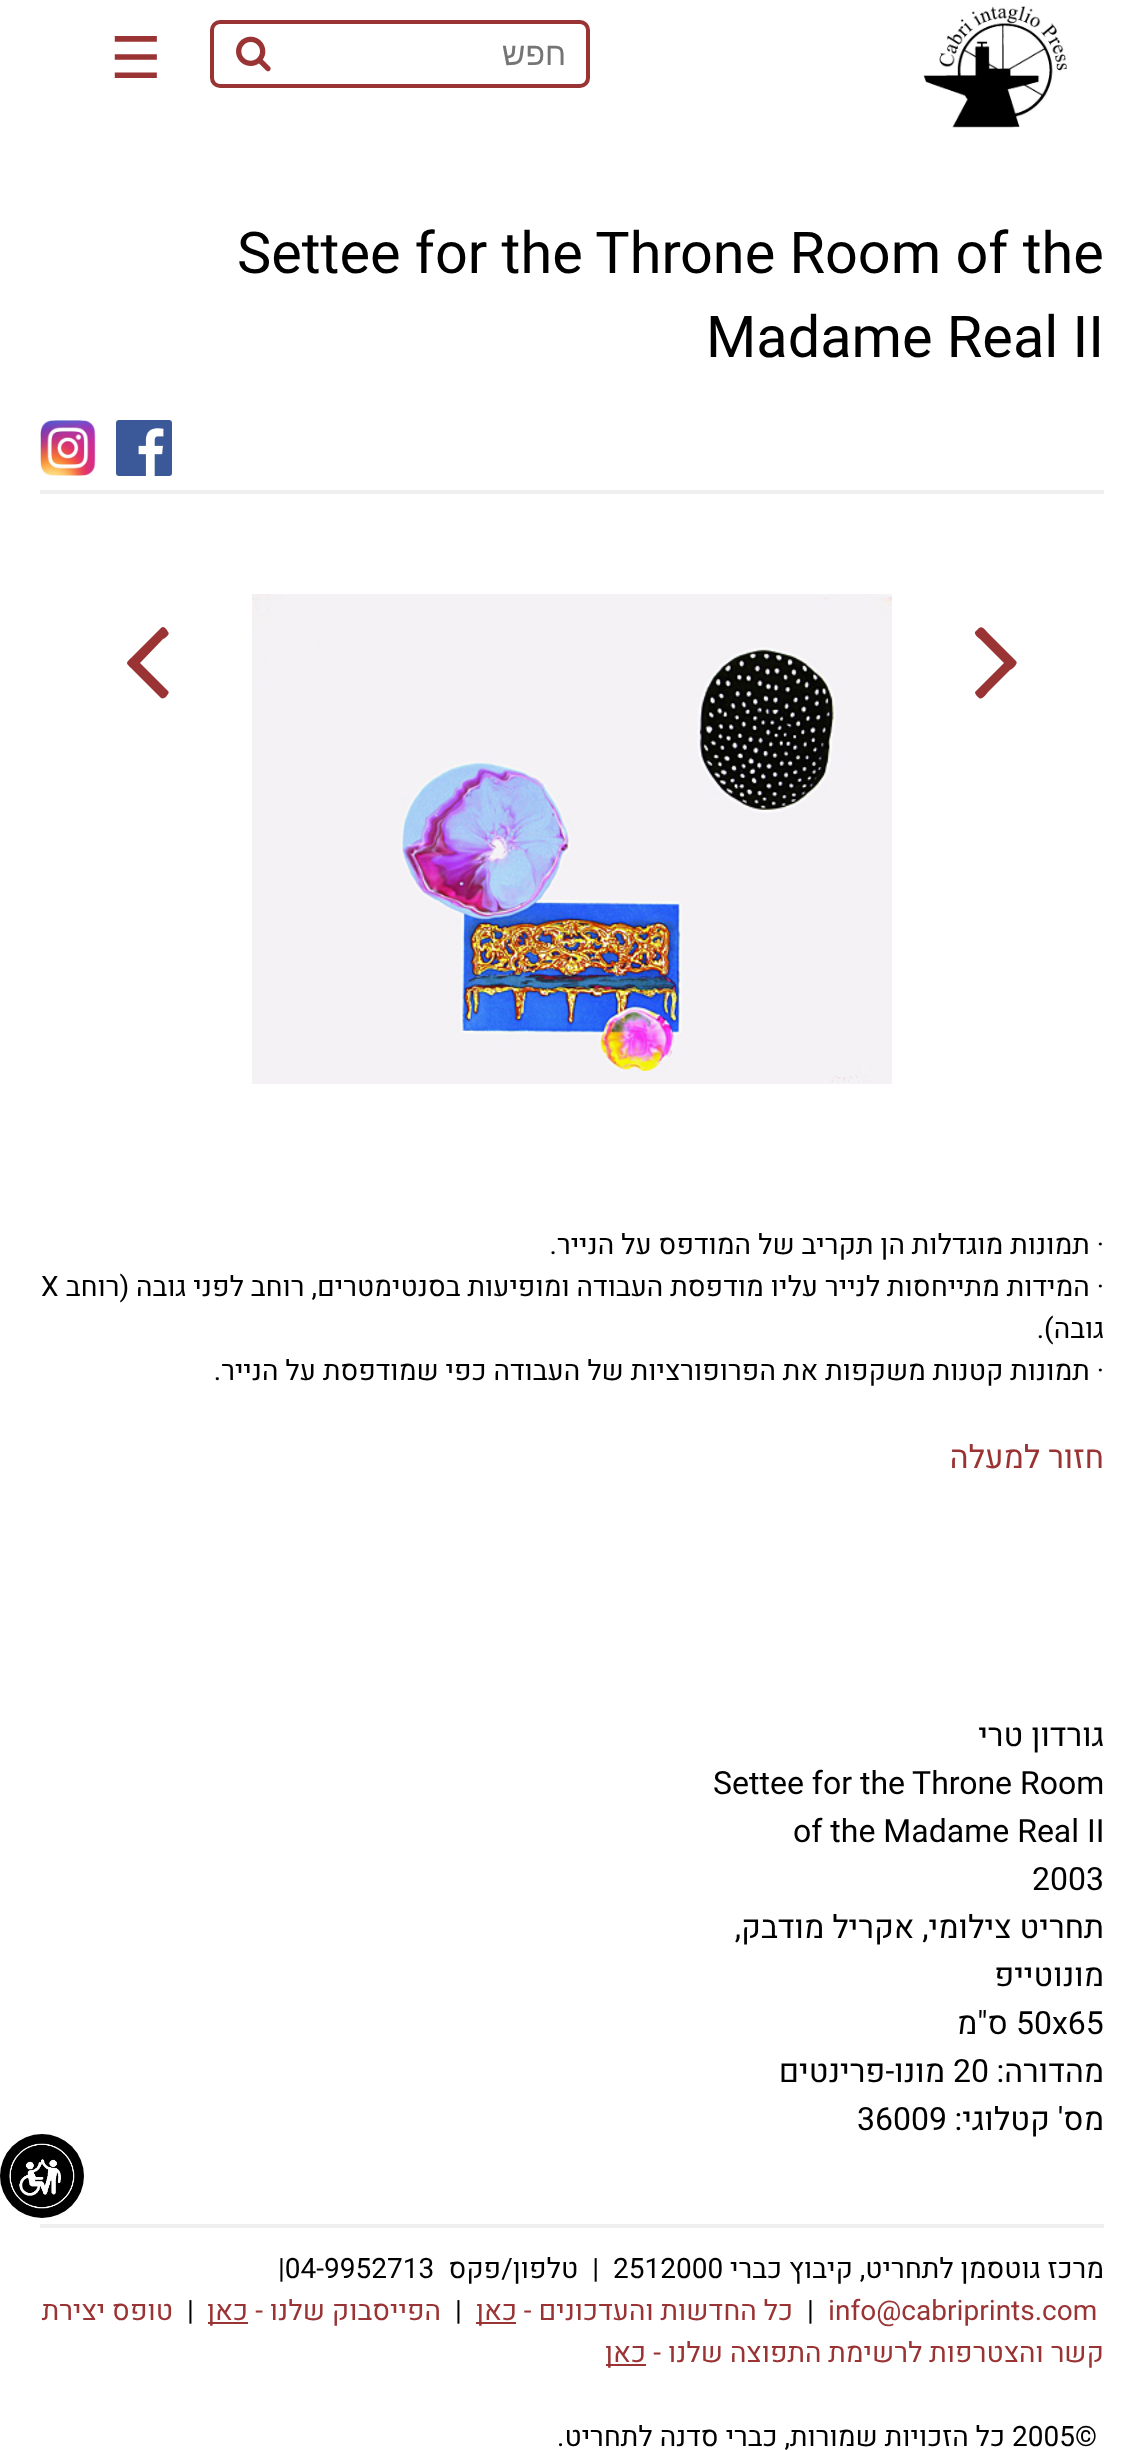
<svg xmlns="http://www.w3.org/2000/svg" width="1144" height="2450">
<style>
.a{font:32px Liberation Sans;direction:rtl;fill:#757575}
.b{font:57.6px DejaVu Sans;fill:#9a3334}
.c{font:57.6px Heebo;fill:#000}
.d{font:28px Heebo;direction:rtl;fill:#000}
.e{font:28px Heebo;fill:#000}
.f{font:32px Heebo;direction:rtl;fill:#9a3334}
.g{font:32px Heebo;direction:rtl;fill:#000}
.h{font:32px Heebo;fill:#000}
.i{font:28px Heebo;fill:#9a3334}
.j{font:28px Heebo;direction:rtl;fill:#9a3334}
</style>
<rect width="100%" height="100%" fill="#fff"/>
<image href="1.png" x="923" y="6" width="144" height="122"/>
<rect fill="none" stroke="#9a3334" stroke-width="4" x="212" y="22" width="376" height="64" rx="8"/>
<image href="2.png" x="236" y="36" width="35" height="36"/>
<image href="3.png" x="116" y="420" width="56" height="56"/>
<image href="4.png" x="40" y="420" width="56" height="56"/>
<path fill="#efefef" d="M40 490h1064v4H40z"/>
<path fill="#9a3334" d="M1016 661c3 3-5 9-6 9l-22 22c0 0-6 9-9 6c-1-1-6-5-3-7l28-28l-24-24c0 0-6-4-5-7l3-3c4-4 6 0 10 4z"/>
<image href="5.png" x="252" y="594" width="640" height="490"/>
<path fill="#9a3334" d="M168 632c3 2-4 7-5 7l-23 24l28 28c2 2-1 4-2 6c-2 1-3 2-5 1l-28-28c-8-8-8-6 0-14l28-28c3-3 6 2 7 4z"/>
<path fill="#efefef" d="M40 2224h1064v4H40z"/>
<path fill="#9a3334" d="M476 2322h40v2H476z"/>
<path fill="#9a3334" d="M208 2322h40v2H208z"/>
<path fill="#9a3334" d="M606 2364h40v2H606z"/>
<circle fill="#000" cx="42" cy="2176" r="42"/>
<image href="6.png" x="9" y="2143" width="66" height="66"/>
<text class="a" x="566" y="65">חפש</text>
<text class="b" x="110" y="78">☰</text>
<text class="c" x="237" y="273">Settee for the Throne Room of the</text>
<text class="c" x="706" y="357">Madame Real II</text>
<text class="d" x="1104" y="1254">· תמונות מוגדלות הן תקריב של המודפס על הנייר.</text>
<text class="d" x="1104" y="1296">· המידות מתייחסות לנייר עליו מודפסת העבודה ומופיעות בסנטימטרים, רוחב לפני גובה (רוחב</text>
<text class="e" x="41" y="1296">X</text>
<text class="d" x="1104" y="1338">גובה).</text>
<text class="d" x="1104" y="1380">· תמונות קטנות משקפות את הפרופורציות של העבודה כפי שמודפסת על הנייר.</text>
<text class="f" x="1104" y="1468">חזור למעלה</text>
<text class="g" x="1104" y="1746">גורדון טרי</text>
<text class="h" x="713" y="1794">Settee for the Throne Room</text>
<text class="h" x="793" y="1842">of the Madame Real II</text>
<text class="h" x="1032" y="1890">2003</text>
<text class="g" x="1104" y="1938">תחריט צילומי, אקריל מודבק,</text>
<text class="g" x="1104" y="1986">מונוטייפ</text>
<text class="h" x="1016" y="2034">50x65</text>
<text class="g" x="1008" y="2034">ס"מ</text>
<text class="g" x="1104" y="2082">מהדורה:</text>
<text class="h" x="953" y="2082">20</text>
<text class="g" x="945" y="2082">מונו-פרינטים</text>
<text class="g" x="1104" y="2130">מס' קטלוגי:</text>
<text class="h" x="857" y="2130">36009</text>
<text class="d" x="1104" y="2278">מרכז גוטסמן לתחריט, קיבוץ כברי</text>
<text class="e" x="613" y="2278">2512000</text>
<text class="d" xml:space="preserve" x="599" y="2278">|  טלפון/פקס</text>
<text class="e" x="278" y="2278">|04-9952713</text>
<text class="i" x="828" y="2320">info@cabriprints.com</text>
<text class="e" x="807" y="2320">|</text>
<text class="j" x="793" y="2320">כל החדשות והעדכונים -</text>
<text class="j" x="517" y="2320">כאן</text>
<text class="e" x="455" y="2320">|</text>
<text class="j" x="441" y="2320">הפייסבוק שלנו -</text>
<text class="j" x="248" y="2320">כאן</text>
<text class="e" x="187" y="2320">|</text>
<text class="j" x="173" y="2320">טופס יצירת</text>
<text class="j" x="1104" y="2362">קשר והצטרפות לרשימת התפוצה שלנו -</text>
<text class="j" x="646" y="2362">כאן</text>
<text class="e" x="1012" y="2446">2005©</text>
<text class="d" x="1005" y="2446">כל הזכויות שמורות, כברי סדנה לתחריט.</text>
</svg>
